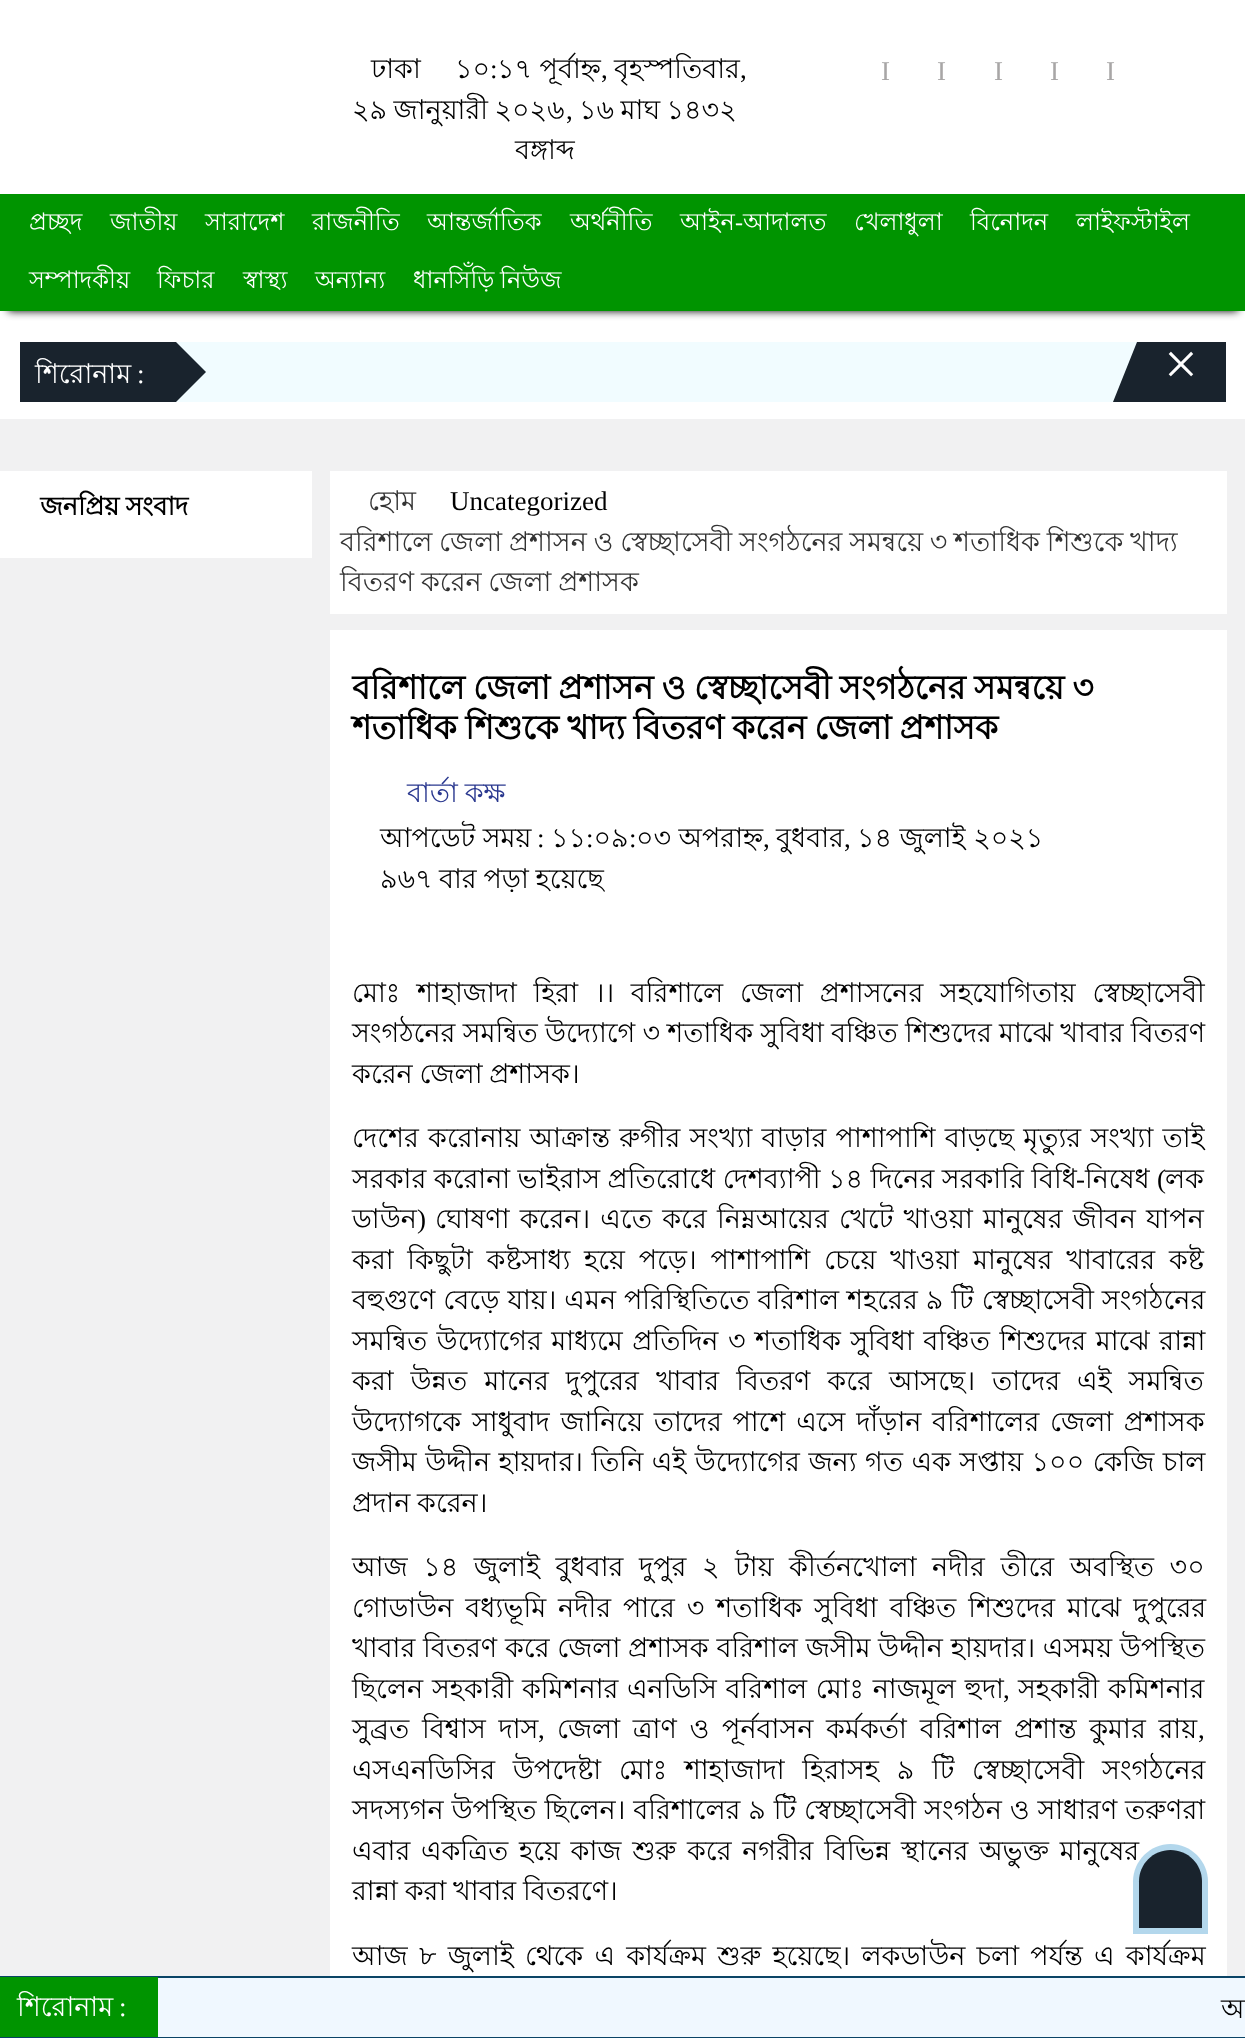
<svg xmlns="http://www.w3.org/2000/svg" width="1245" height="2038">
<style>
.a{font:27px Lohit Bengali;fill:#000}
.b{font:27px Liberation Serif;fill:#000}
.c{font:27px Liberation Serif;fill:#a8a6a6}
.d{font:24px Lohit Bengali;fill:#fff}
.e{font:24px Liberation Serif;fill:#fff}
.f{font:27px Lohit Bengali;fill:#fff}
.g{font:27px Liberation Serif;fill:#fff}
.h{font:60px Liberation Serif;fill:#fff}
.i{font:bold 25.5px Lohit Bengali;fill:#000}
.j{font:27px Lohit Bengali;fill:#333}
.k{font:bold 33px Lohit Bengali;fill:#000}
.l{font:27px Lohit Bengali;fill:#2a388f}
</style>
<rect width="100%" height="100%" fill="#fff"/>
<path fill="#000" filter="blur(4px)" d="M8 209h1230v102H8z"/>
<path fill="#009400" d="M0 194h1245v117H0z"/>
<path fill="#19232d" d="M20 342h156v60H20z"/>
<path fill="#f1fcff" d="M176 342h961v60H176z"/>
<path fill="#19232d" d="M176 402v-60l30 30z"/>
<path fill="#19232d" d="M1137 342h89v60H1137z"/>
<path fill="#19232d" d="M1137 402h-24l24-60z"/>
<path fill="#f1f1f2" d="M0 419h1245v1557H0z"/>
<path fill="#fff" d="M0 471h312v87H0z"/>
<path fill="#fff" d="M330 471h897v143H330z"/>
<path fill="#fff" d="M330 630h897v1346H330z"/>
<path fill="#f0f8ff" d="M158 1978h1087v59H158z"/>
<path fill="#0a4466" d="M0 1976h1245v2H0z"/>
<path fill="#0a4466" d="M0 2037h1245v1H0z"/>
<path fill="#009400" d="M0 1977h158v60H0z"/>
<text class="a" x="371" y="78">ঢাকা</text>
<text class="a" x="455" y="78">১০</text>
<text class="b" x="490" y="78">:</text>
<text class="a" x="497" y="78">১৭ পূর্বাহ্ন</text>
<text class="b" x="601" y="78">,</text>
<text class="a" x="614" y="78">বৃহস্পতিবার</text>
<text class="b" x="740" y="78">,</text>
<text class="a" x="352" y="119" word-spacing="-1">২৯ জানুয়ারী ২০২৬</text>
<text class="b" x="566" y="119">,</text>
<text class="a" x="579" y="119" word-spacing="-1">১৬ মাঘ ১৪৩২</text>
<text class="a" x="515" y="159">বঙ্গাব্দ</text>
<text class="c" x="881" y="80">I</text>
<text class="c" x="937" y="80">I</text>
<text class="c" x="994" y="80">I</text>
<text class="c" x="1050" y="80">I</text>
<text class="c" x="1106" y="80">I</text>
<text class="d" x="29" y="230">প্রচ্ছদ</text>
<text class="d" x="110" y="230">জাতীয়</text>
<text class="d" x="205" y="230">সারাদেশ</text>
<text class="d" x="312" y="230">রাজনীতি</text>
<text class="d" x="427" y="230">আন্তর্জাতিক</text>
<text class="d" x="570" y="230">অর্থনীতি</text>
<text class="d" x="680" y="230">আইন</text>
<text class="e" x="735" y="230">-</text>
<text class="d" x="743" y="230">আদালত</text>
<text class="d" x="854" y="230">খেলাধুলা</text>
<text class="d" x="970" y="230">বিনোদন</text>
<text class="d" x="1076" y="230">লাইফস্টাইল</text>
<text class="d" x="29" y="288">সম্পাদকীয়</text>
<text class="d" x="157" y="288">ফিচার</text>
<text class="d" x="243" y="288">স্বাস্থ্য</text>
<text class="d" x="315" y="288">অন্যান্য</text>
<text class="d" x="413" y="288" word-spacing="-1">ধানসিঁড়ি নিউজ</text>
<text class="f" x="35" y="383">শিরোনাম</text>
<text class="g" x="137" y="383">:</text>
<text class="h" x="1164" y="384">×</text>
<text class="i" x="40" y="515" word-spacing="-1">জনপ্রিয় সংবাদ</text>
<text class="j" x="368" y="510">হোম</text>
<text class="b" x="450" y="510">Uncategorized</text>
<text class="j" x="340" y="551" word-spacing="-0.75">বরিশালে জেলা প্রশাসন ও স্বেচ্ছাসেবী সংগঠনের সমন্বয়ে ৩ শতাধিক শিশুকে খাদ্য</text>
<text class="j" x="340" y="591" word-spacing="-0.75">বিতরণ করেন জেলা প্রশাসক</text>
<text class="k" x="352" y="699" word-spacing="-1">বরিশালে জেলা প্রশাসন ও স্বেচ্ছাসেবী সংগঠনের সমন্বয়ে ৩</text>
<text class="k" x="352" y="739" word-spacing="-1">শতাধিক শিশুকে খাদ্য বিতরণ করেন জেলা প্রশাসক</text>
<text class="l" x="407" y="802" word-spacing="-0.75">বার্তা কক্ষ</text>
<text class="a" x="380" y="847">আপডেট সময়</text>
<text class="b" x="537" y="847">:</text>
<text class="a" x="551" y="847">১১ ০৯</text>
<text class="a" x="636" y="847">০৩ অপরাহ্ন</text>
<text class="a" x="857" y="847">১৪ জুলাই ২০২১</text>
<text class="b" x="586" y="847">:</text>
<text class="b" x="629" y="847">:</text>
<text class="b" x="763" y="847">,</text>
<text class="a" x="776" y="847">বুধবার</text>
<text class="b" x="844" y="847">,</text>
<text class="a" x="380" y="888">৯৬৭</text>
<text class="a" x="439" y="888" word-spacing="-0.75">বার পড়া হয়েছে</text>
<text class="a" x="352" y="1002" word-spacing="9.25">মোঃ শাহাজাদা হিরা ।। বরিশালে জেলা প্রশাসনের সহযোগিতায় স্বেচ্ছাসেবী</text>
<text class="a" x="352" y="1042" word-spacing="-0.25">সংগঠনের সমন্বিত উদ্যোগে ৩ শতাধিক সুবিধা বঞ্চিত শিশুদের মাঝে খাবার বিতরণ</text>
<text class="a" x="352" y="1083" word-spacing="-0.75">করেন জেলা প্রশাসক।</text>
<text class="a" x="352" y="1147" word-spacing="1.75">দেশের করোনায় আক্রান্ত রুগীর সংখ্যা বাড়ার পাশাপাশি বাড়ছে মৃত্যুর সংখ্যা তাই</text>
<text class="a" x="352" y="1188">সরকার করোনা ভাইরাস প্রতিরোধে দেশব্যাপী ১৪ দিনের সরকারি বিধি</text>
<text class="b" x="1076" y="1188">-</text>
<text class="a" x="1085" y="1188">নিষেধ</text>
<text class="b" x="1157" y="1188">(</text>
<text class="a" x="1165" y="1188">লক</text>
<text class="a" x="352" y="1228">ডাউন</text>
<text class="b" x="417" y="1228">)</text>
<text class="a" x="435" y="1228" word-spacing="2.75">ঘোষণা করেন। এতে করে নিম্নআয়ের খেটে খাওয়া মানুষের জীবন যাপন</text>
<text class="a" x="352" y="1269" word-spacing="6.25">করা কিছুটা কষ্টসাধ্য হয়ে পড়ে। পাশাপাশি চেয়ে খাওয়া মানুষের খাবারের কষ্ট</text>
<text class="a" x="352" y="1309" word-spacing="0.5">বহুগুণে বেড়ে যায়। এমন পরিস্থিতিতে বরিশাল শহরের ৯ টি স্বেচ্ছাসেবী সংগঠনের</text>
<text class="a" x="352" y="1350" word-spacing="2">সমন্বিত উদ্যোগের মাধ্যমে প্রতিদিন ৩ শতাধিক সুবিধা বঞ্চিত শিশুদের মাঝে রান্না</text>
<text class="a" x="352" y="1390" word-spacing="9.5">করা উন্নত মানের দুপুরের খাবার বিতরণ করে আসছে। তাদের এই সমন্বিত</text>
<text class="a" x="352" y="1431" word-spacing="3.25">উদ্যোগকে সাধুবাদ জানিয়ে তাদের পাশে এসে দাঁড়ান বরিশালের জেলা প্রশাসক</text>
<text class="a" x="352" y="1471" word-spacing="1">জসীম উদ্দীন হায়দার। তিনি এই উদ্যোগের জন্য গত এক সপ্তায় ১০০ কেজি চাল</text>
<text class="a" x="352" y="1512" word-spacing="-0.75">প্রদান করেন।</text>
<text class="a" x="352" y="1576" word-spacing="8.1">আজ ১৪ জুলাই বুধবার দুপুর ২ টায় কীর্তনখোলা নদীর তীরে অবস্থিত ৩০</text>
<text class="a" x="352" y="1617" word-spacing="4.5">গোডাউন বধ্যভূমি নদীর পারে ৩ শতাধিক সুবিধা বঞ্চিত শিশুদের মাঝে দুপুরের</text>
<text class="a" x="352" y="1657" word-spacing="0.25">খাবার বিতরণ করে জেলা প্রশাসক বরিশাল জসীম উদ্দীন হায়দার। এসময় উপস্থিত</text>
<text class="a" x="352" y="1698" word-spacing="1.25">ছিলেন সহকারী কমিশনার এনডিসি বরিশাল মোঃ নাজমূল হুদা</text>
<text class="b" x="1003" y="1698">,</text>
<text class="a" x="1018" y="1698" word-spacing="1.25">সহকারী কমিশনার</text>
<text class="a" x="352" y="1738" word-spacing="5.25">সুব্রত বিশ্বাস দাস</text>
<text class="b" x="538" y="1738">,</text>
<text class="a" x="557" y="1738" word-spacing="5.25">জেলা ত্রাণ ও পূর্নবাসন কর্মকর্তা বরিশাল প্রশান্ত কুমার রায়</text>
<text class="b" x="1198" y="1738">,</text>
<text class="a" x="352" y="1779" word-spacing="10.25">এসএনডিসির উপদেষ্টা মোঃ শাহাজাদা হিরাসহ ৯ টি স্বেচ্ছাসেবী সংগঠনের</text>
<text class="a" x="352" y="1819" word-spacing="0.4">সদস্যগন উপস্থিত ছিলেন। বরিশালের ৯ টি স্বেচ্ছাসেবী সংগঠন ও সাধারণ তরুণরা</text>
<text class="a" x="352" y="1860" word-spacing="3.25">এবার একত্রিত হয়ে কাজ শুরু করে নগরীর বিভিন্ন স্থানের অভুক্ত মানুষের</text>
<text class="a" x="352" y="1900" word-spacing="-0.75">রান্না করা খাবার বিতরণে।</text>
<text class="a" x="352" y="1965" word-spacing="3.75">আজ ৮ জুলাই থেকে এ কার্যক্রম শুরু হয়েছে। লকডাউন চলা পর্যন্ত এ কার্যক্রম</text>
<path fill="#b3d7ec" d="M1170.5 1844c20.5 0 37.5 17 37.5 37.5v52.5h-75v-52.5c0-20.5 17-37.5 37.5-37.5z"/>
<path fill="#19232d" d="M1170.5 1850c17.5 0 31.5 14 31.5 31.5v46.5h-63v-46.5c0-17.5 14-31.5 31.5-31.5z"/>
<text class="f" x="17" y="2016">শিরোনাম</text>
<text class="g" x="119" y="2016">:</text>
<text class="a" x="1221" y="2018" word-spacing="-1">আ</text>
</svg>
